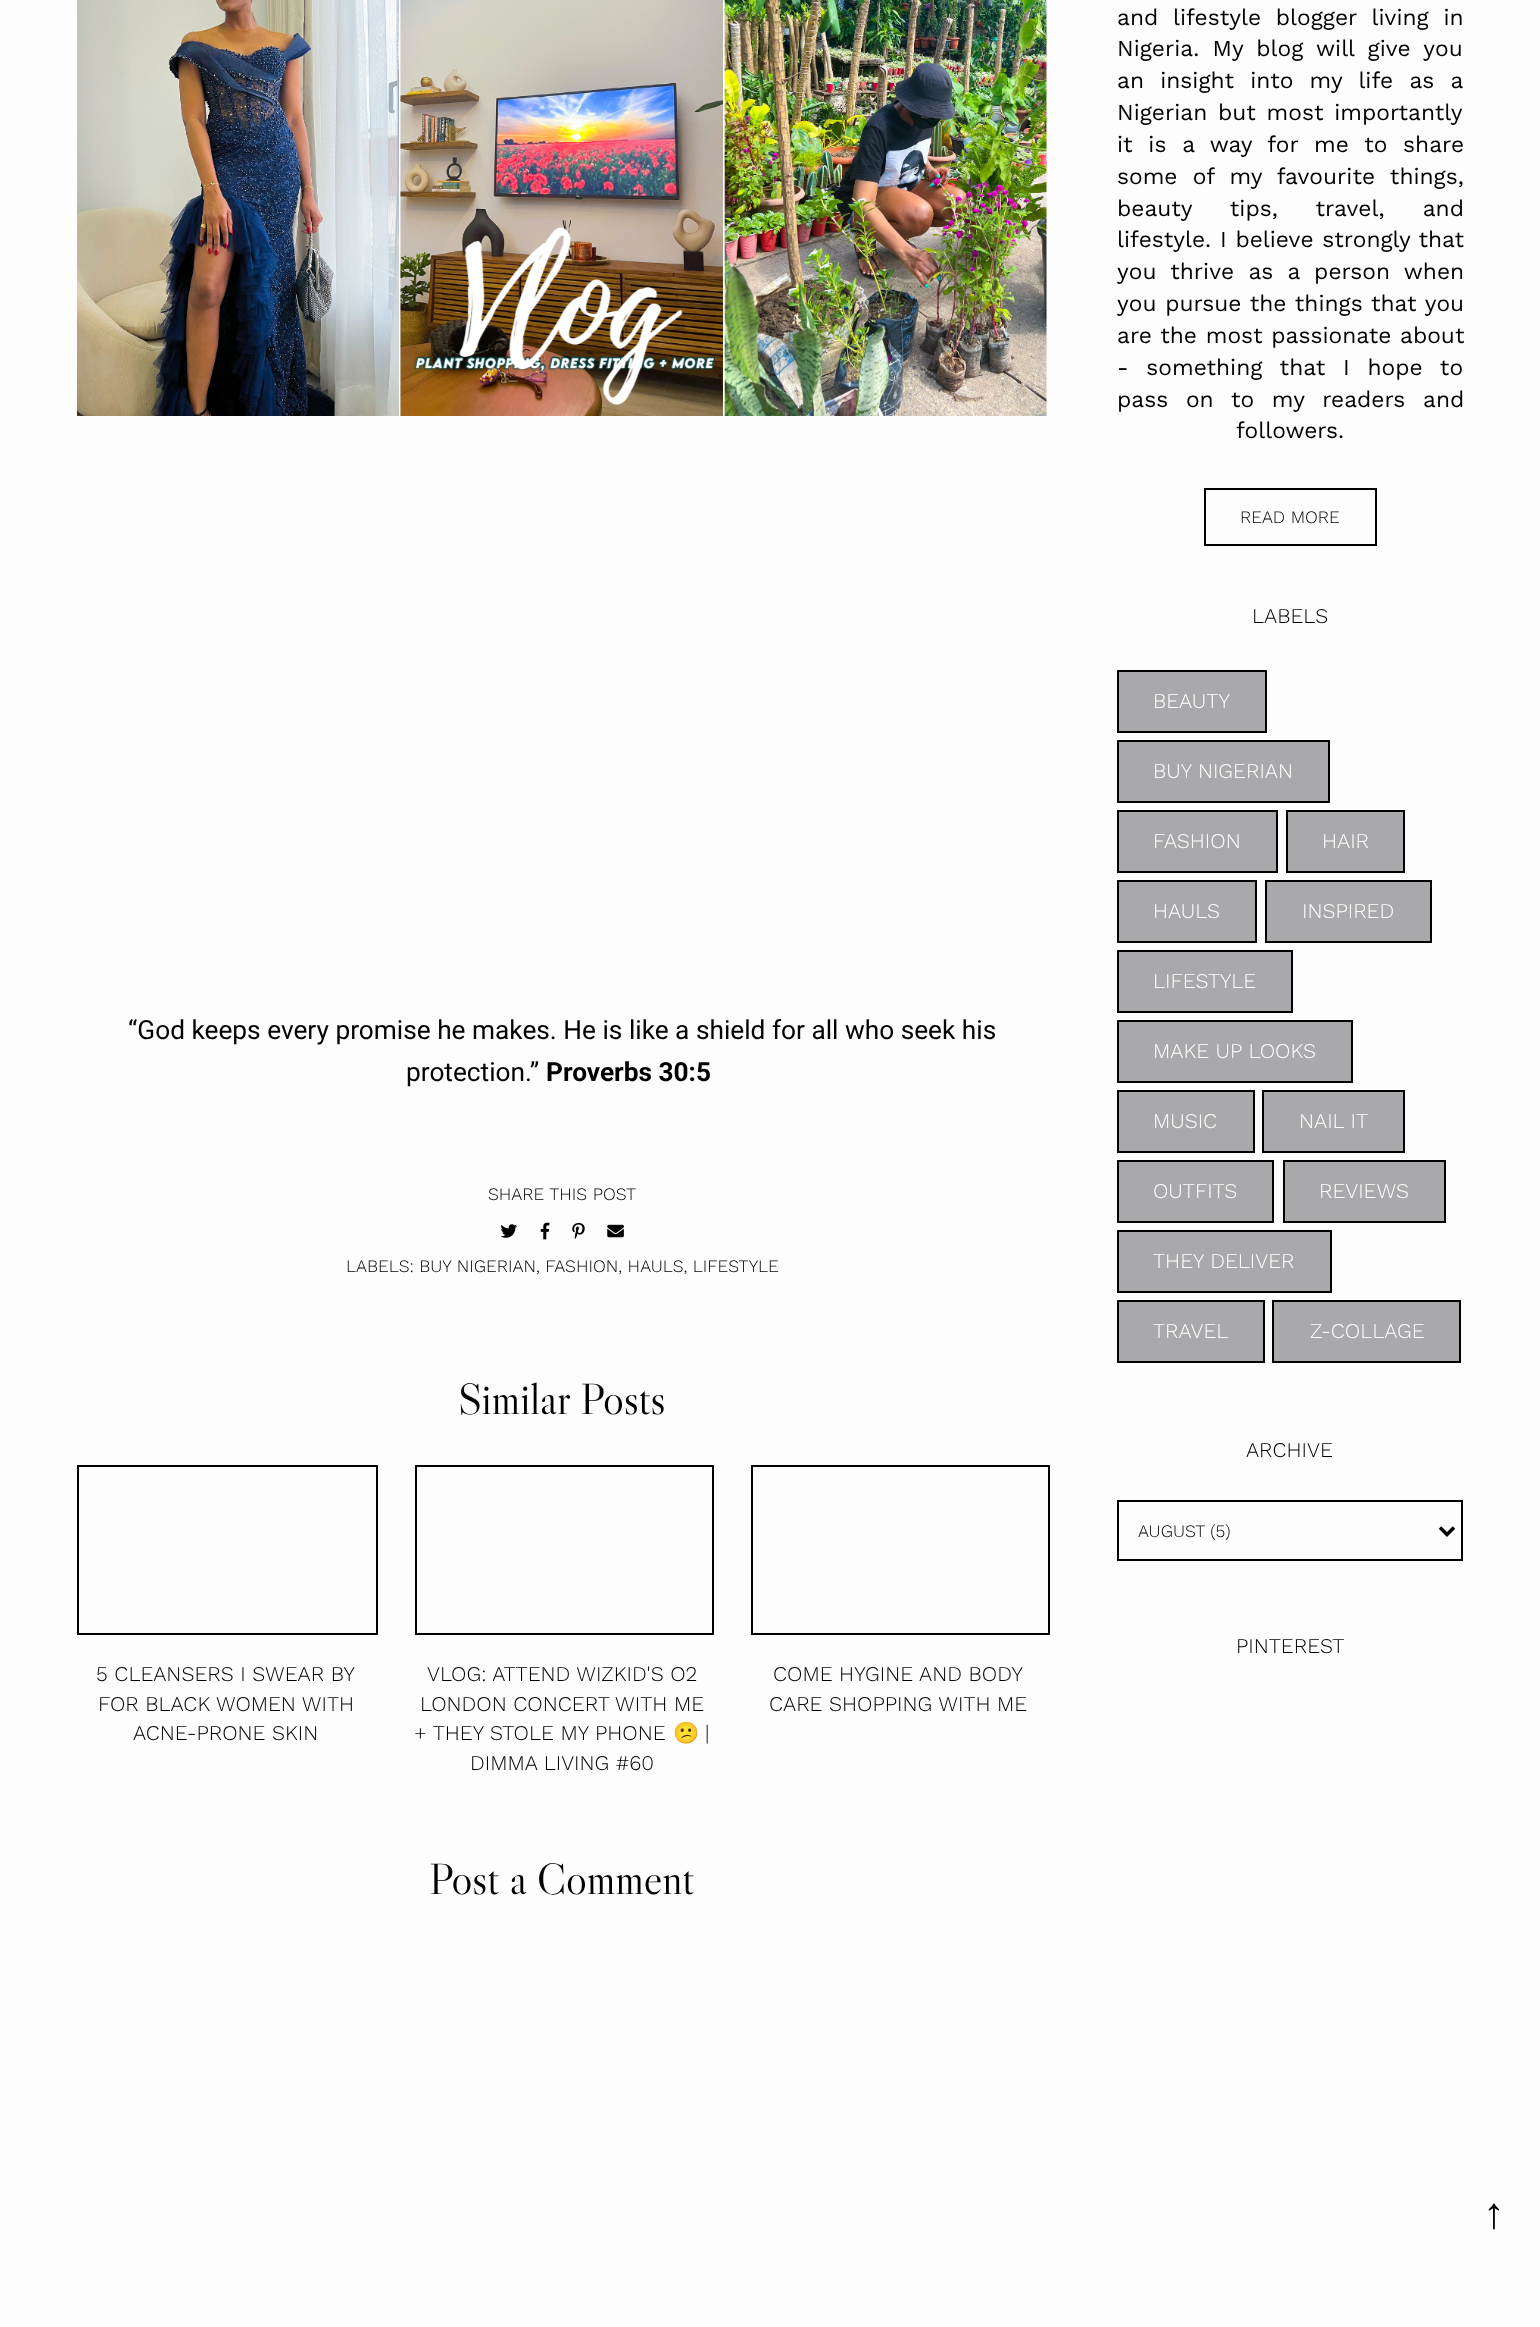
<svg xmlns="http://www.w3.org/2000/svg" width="1540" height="2327">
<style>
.a{font:26.25px Roboto;fill:#000}
.b{font:bold 26.25px Roboto;fill:#000}
.c{font:300 17.5px Work Sans;fill:#000}
.d{font:43.75px Libre Caslon Display;fill:#000}
.e{font:300 21px Work Sans;fill:#000}
.f{font:21px Noto Color Emoji;fill:#000}
.g{font:22.75px Work Sans;fill:#000}
.h{font:300 21px Work Sans;fill:#fff}
.i{font:43.75px Liberation Serif;fill:#000}
</style>
<rect width="100%" height="100%" fill="#fdfdfd"/>
<image href="1.png" x="77" y="0" width="970" height="416"/>
<image href="2.png" x="500" y="1224" width="17" height="14"/>
<image href="3.png" x="540" y="1222" width="10" height="18"/>
<image href="4.png" x="572" y="1222" width="13" height="17"/>
<image href="5.png" x="607" y="1224" width="17" height="14"/>
<path fill="none" stroke="#000" stroke-width="2" d="M78 1466h299v168H78z"/>
<path fill="none" stroke="#000" stroke-width="2" d="M416 1466h297v168H416z"/>
<path fill="none" stroke="#000" stroke-width="2" d="M752 1466h297v168H752z"/>
<path fill="none" stroke="#000" stroke-width="2" d="M1205 489h171v56H1205z"/>
<path fill="#a9a9ab" stroke="#000" stroke-width="2" d="M1118 671h148v61H1118z"/>
<path fill="#a9a9ab" stroke="#000" stroke-width="2" d="M1118 741h211v61H1118z"/>
<path fill="#a9a9ab" stroke="#000" stroke-width="2" d="M1118 811h159v61H1118z"/>
<path fill="#a9a9ab" stroke="#000" stroke-width="2" d="M1287 811h117v61H1287z"/>
<path fill="#a9a9ab" stroke="#000" stroke-width="2" d="M1118 881h138v61H1118z"/>
<path fill="#a9a9ab" stroke="#000" stroke-width="2" d="M1266 881h165v61H1266z"/>
<path fill="#a9a9ab" stroke="#000" stroke-width="2" d="M1118 951h174v61H1118z"/>
<path fill="#a9a9ab" stroke="#000" stroke-width="2" d="M1118 1021h234v61H1118z"/>
<path fill="#a9a9ab" stroke="#000" stroke-width="2" d="M1118 1091h136v61H1118z"/>
<path fill="#a9a9ab" stroke="#000" stroke-width="2" d="M1263 1091h141v61H1263z"/>
<path fill="#a9a9ab" stroke="#000" stroke-width="2" d="M1118 1161h155v61H1118z"/>
<path fill="#a9a9ab" stroke="#000" stroke-width="2" d="M1284 1161h161v61H1284z"/>
<path fill="#a9a9ab" stroke="#000" stroke-width="2" d="M1118 1231h213v61H1118z"/>
<path fill="#a9a9ab" stroke="#000" stroke-width="2" d="M1118 1301h146v61H1118z"/>
<path fill="#a9a9ab" stroke="#000" stroke-width="2" d="M1273 1301h187v61H1273z"/>
<path fill="none" stroke="#000" stroke-width="2" d="M1118 1501h344v59H1118z"/>
<path fill="none" stroke="#000" stroke-width="3.5" d="M1440 1527.5l7 7l7-7"/>
<text class="a" x="128" y="1039">“God keeps every promise he makes. He is like a shield for all who seek his</text>
<text class="a" x="406" y="1081">protection.”</text>
<text class="b" x="546" y="1081">Proverbs 30:5</text>
<text class="c" x="488" y="1200">SHARE THIS POST</text>
<text class="c" x="346" y="1272">LABELS: BUY NIGERIAN, FASHION, HAULS, LIFESTYLE</text>
<text class="d" x="458" y="1414">Similar Posts</text>
<text class="e" x="96" y="1681">5 CLEANSERS I SWEAR BY</text>
<text class="e" x="98" y="1711">FOR BLACK WOMEN WITH</text>
<text class="e" x="133" y="1740">ACNE-PRONE SKIN</text>
<text class="e" x="427" y="1681">VLOG: ATTEND WIZKID'S O2</text>
<text class="e" x="420" y="1711">LONDON CONCERT WITH ME</text>
<text class="e" x="414" y="1740">+ THEY STOLE MY PHONE</text>
<text class="f" x="673" y="1740">😕</text>
<text class="e" x="705" y="1740">|</text>
<text class="e" x="470" y="1770">DIMMA LIVING #60</text>
<text class="e" x="773" y="1681">COME HYGINE AND BODY</text>
<text class="e" x="769" y="1711">CARE SHOPPING WITH ME</text>
<text class="d" x="429" y="1894">Post a Comment</text>
<text class="g" x="1117" y="25" word-spacing="7">and lifestyle blogger living in</text>
<text class="g" x="1117" y="56" word-spacing="5.5">Nigeria. My blog will give you</text>
<text class="g" x="1117" y="88" word-spacing="8.5">an insight into my life as a</text>
<text class="g" x="1117" y="120" word-spacing="3">Nigerian but most importantly</text>
<text class="g" x="1117" y="152" word-spacing="8">it is a way for me to share</text>
<text class="g" x="1117" y="184" word-spacing="7.5">some of my favourite things,</text>
<text class="g" x="1117" y="216" word-spacing="30.5">beauty tips, travel, and</text>
<text class="g" x="1117" y="247" word-spacing="1">lifestyle. I believe strongly that</text>
<text class="g" x="1117" y="279" word-spacing="6.5">you thrive as a person when</text>
<text class="g" x="1117" y="311" word-spacing="1">you pursue the things that you</text>
<text class="g" x="1117" y="343" word-spacing="1">are the most passionate about</text>
<text class="g" x="1117" y="375" word-spacing="10">- something that I hope to</text>
<text class="g" x="1117" y="407" word-spacing="10">pass on to my readers and</text>
<text class="g" x="1236" y="438">followers.</text>
<text class="c" x="1240" y="523">READ MORE</text>
<text class="e" x="1252" y="623">LABELS</text>
<text class="h" x="1153" y="708">BEAUTY</text>
<text class="h" x="1153" y="778">BUY NIGERIAN</text>
<text class="h" x="1153" y="848">FASHION</text>
<text class="h" x="1322" y="848">HAIR</text>
<text class="h" x="1153" y="918">HAULS</text>
<text class="h" x="1302" y="918">INSPIRED</text>
<text class="h" x="1153" y="988">LIFESTYLE</text>
<text class="h" x="1153" y="1058">MAKE UP LOOKS</text>
<text class="h" x="1153" y="1128">MUSIC</text>
<text class="h" x="1299" y="1128">NAIL IT</text>
<text class="h" x="1153" y="1198">OUTFITS</text>
<text class="h" x="1319" y="1198">REVIEWS</text>
<text class="h" x="1153" y="1268">THEY DELIVER</text>
<text class="h" x="1153" y="1338">TRAVEL</text>
<text class="h" x="1310" y="1338">Z-COLLAGE</text>
<text class="e" x="1246" y="1457">ARCHIVE</text>
<text class="c" x="1138" y="1537">AUGUST (5)</text>
<text class="e" x="1236" y="1653">PINTEREST</text>
<text class="i" x="1483" y="2228">↑</text>
</svg>
